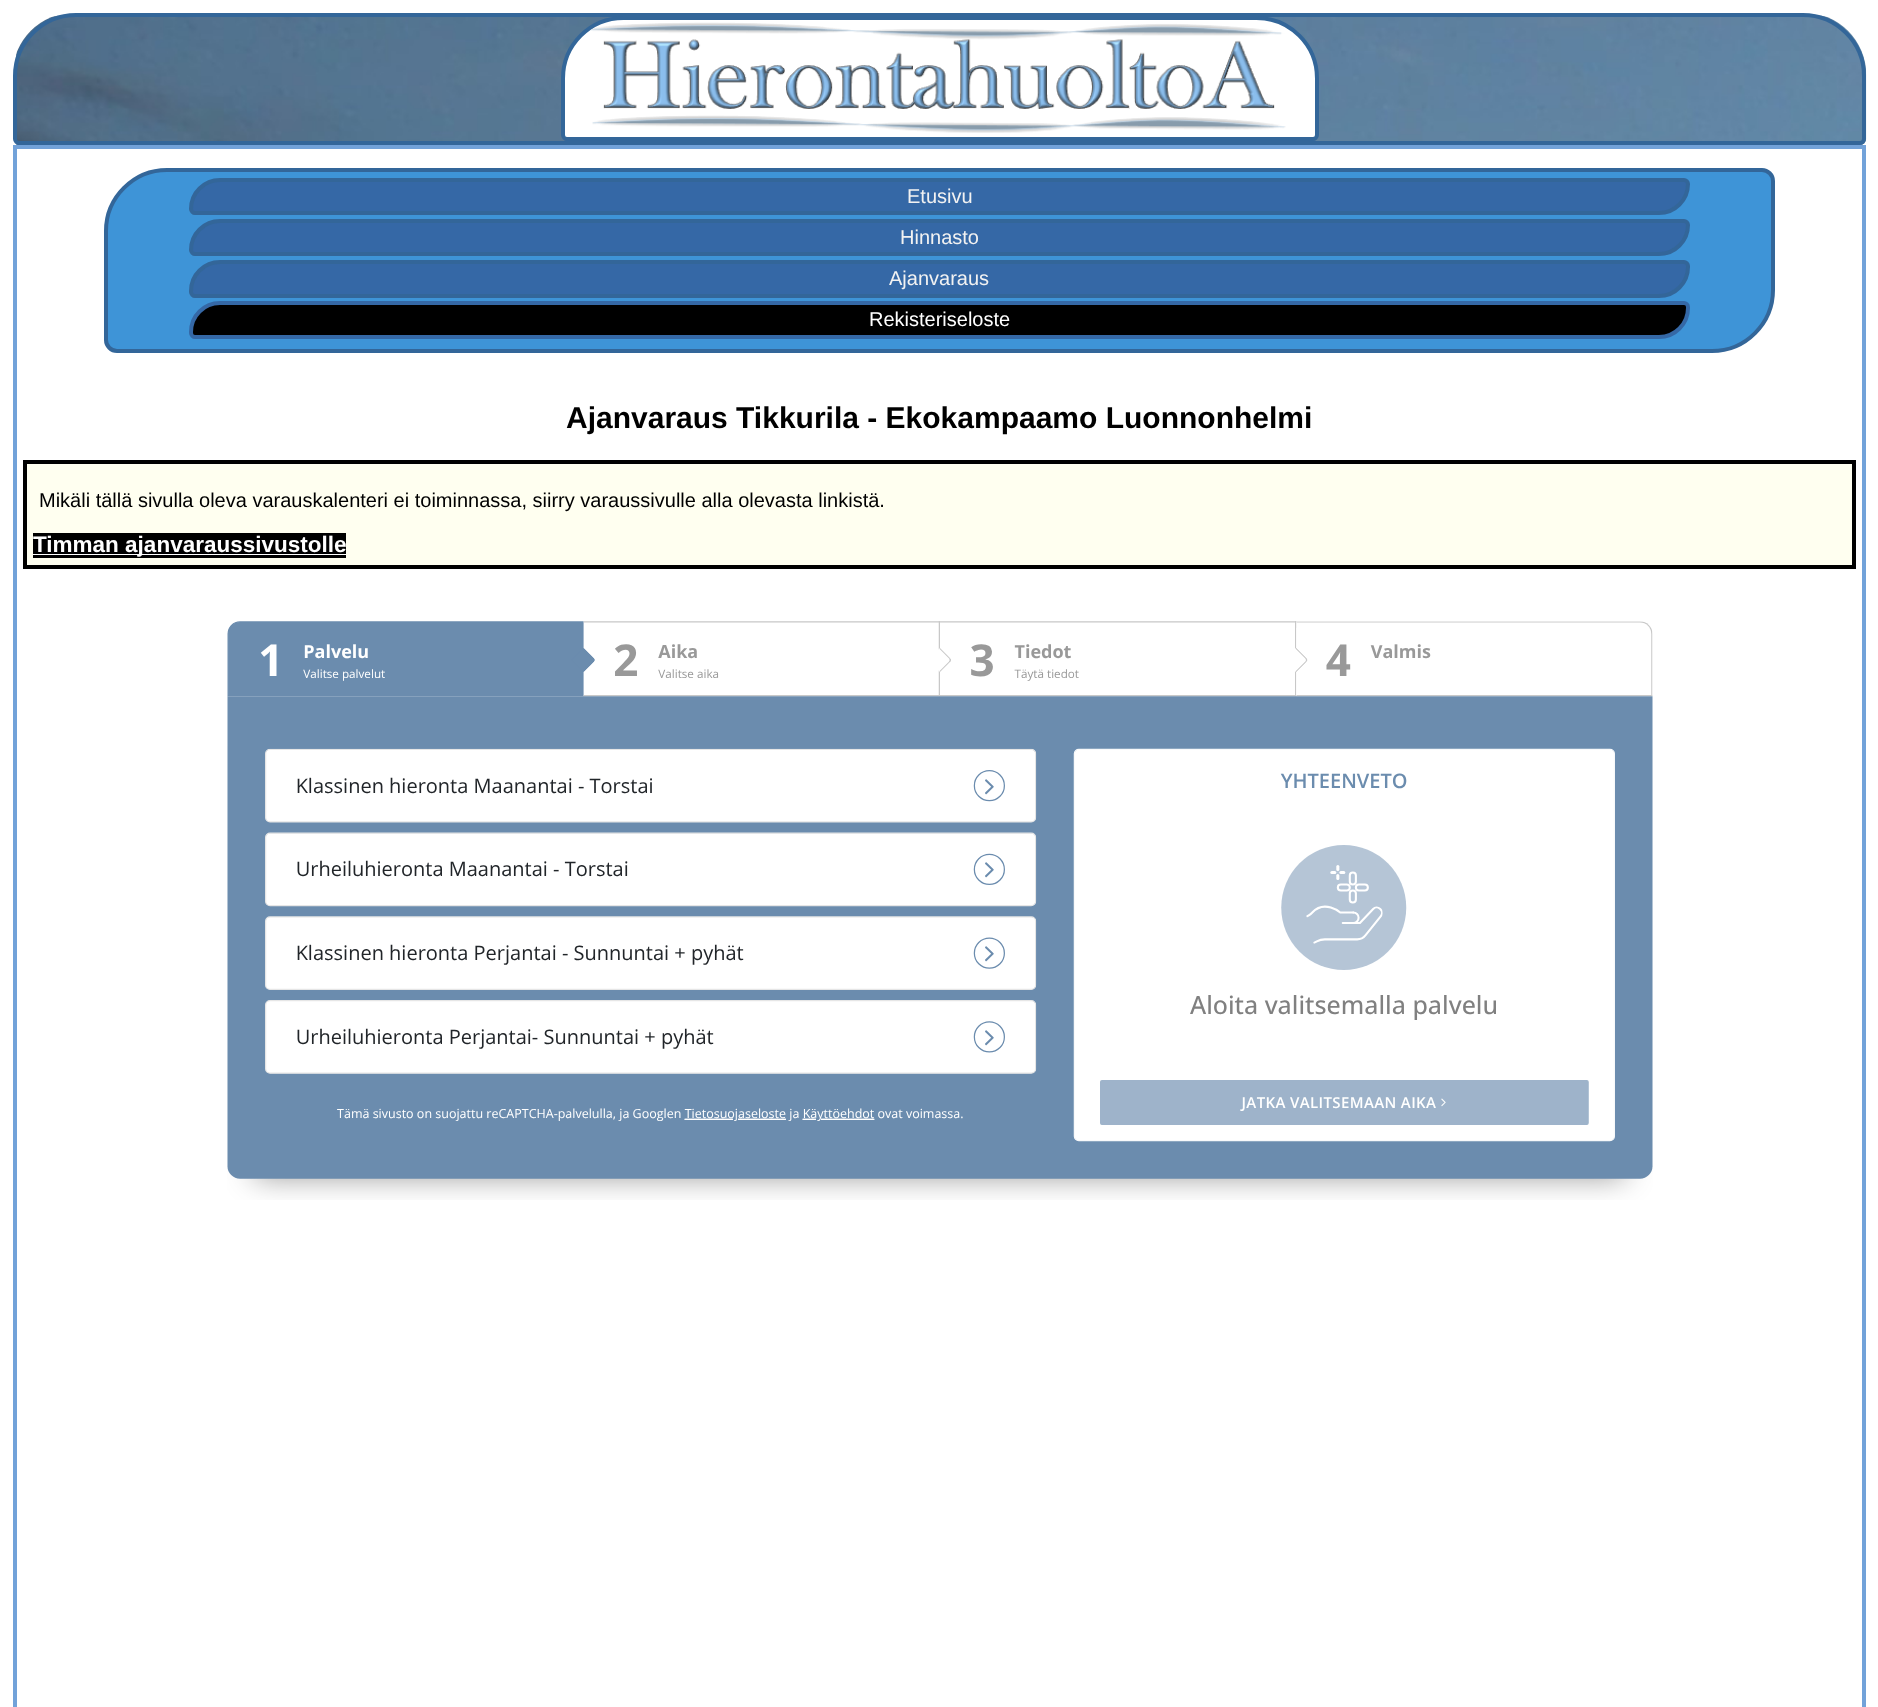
<svg xmlns="http://www.w3.org/2000/svg" width="1878" height="1707">
<style>
.a{font:20px Liberation Sans;fill:#f2f2f2}
.b{font:20px Liberation Sans;fill:#fff}
.c{font:bold 30px Liberation Sans;fill:#000}
.d{font:20px Liberation Sans;fill:#000}
.e{font:bold 22.5px Liberation Sans;fill:#fff}
</style>
<rect width="100%" height="100%" fill="#fff"/>
<image href="1.png" x="16" y="16" width="1851" height="129"/>
<path fill="none" stroke="#369" stroke-width="4" d="M76 15h1727c33.5 0 61 27.5 61 61v63c0 2-2 4-4 4h-1841c-2 0-4-2-4-4v-63c0-33.5 27.5-61 61-61z"/>
<path fill="#fff" stroke="#369" stroke-width="4" d="M623.5 18h633c33.5 0 60.5 27 60.5 60.5v56.5c0 2-2 4-4 4h-746c-2 0-4-2-4-4v-56.5c0-33.5 27-60.5 60.5-60.5z"/>
<image href="2.png" x="591" y="22" width="695" height="111"/>
<path fill="none" stroke="#72a2d9" stroke-width="4" d="M15 147h1849v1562H15z"/>
<path fill="#3e94d7" stroke="#369" stroke-width="4" d="M167 170h1595c6 0 11 5 11 11v109c0 33.5-27.5 61-61 61h-1595c-6 0-11-5-11-11v-109c0-33.5 27.5-61 61-61z"/>
<path fill="#3568a6" stroke="#369" stroke-width="4" d="M220 180h1464c2 0 4 2 4 4c0 16-13 29-29 29h-1464c-2 0-4-2-4-4c0-16 13-29 29-29z"/>
<path fill="#3568a6" stroke="#369" stroke-width="4" d="M220 221h1464c2 0 4 2 4 4c0 16-13 29-29 29h-1464c-2 0-4-2-4-4c0-16 13-29 29-29z"/>
<path fill="#3568a6" stroke="#369" stroke-width="4" d="M220 262h1464c2 0 4 2 4 4v1c0 16-13 29-29 29h-1464c-2 0-4-2-4-4v-1c0-16 13-29 29-29z"/>
<path fill="#000" stroke="#3568a6" stroke-width="4" d="M220 303h1464c2 0 4 2 4 4v1c0 16-13 29-29 29h-1464c-2 0-4-2-4-4v-1c0-16 13-29 29-29z"/>
<path fill="#fffff0" stroke="#000" stroke-width="4" d="M25 462h1829v105H25z"/>
<path fill="#000" d="M33 533h313v25H33z"/>
<path fill="#fff" d="M33 554h313v1H33z"/>
<image href="3.png" x="227" y="621" width="1426" height="579"/>
<text class="a" x="907" y="203">Etusivu</text>
<text class="a" x="900" y="244">Hinnasto</text>
<text class="a" x="889" y="285">Ajanvaraus</text>
<text class="b" x="869" y="326">Rekisteriseloste</text>
<text class="c" x="566" y="428">Ajanvaraus Tikkurila - Ekokampaamo Luonnonhelmi</text>
<text class="d" x="39" y="507">Mikäli tällä sivulla oleva varauskalenteri ei toiminnassa, siirry varaussivulle alla olevasta linkistä.</text>
<text class="e" x="33" y="552">Timman ajanvaraussivustolle</text>
</svg>
